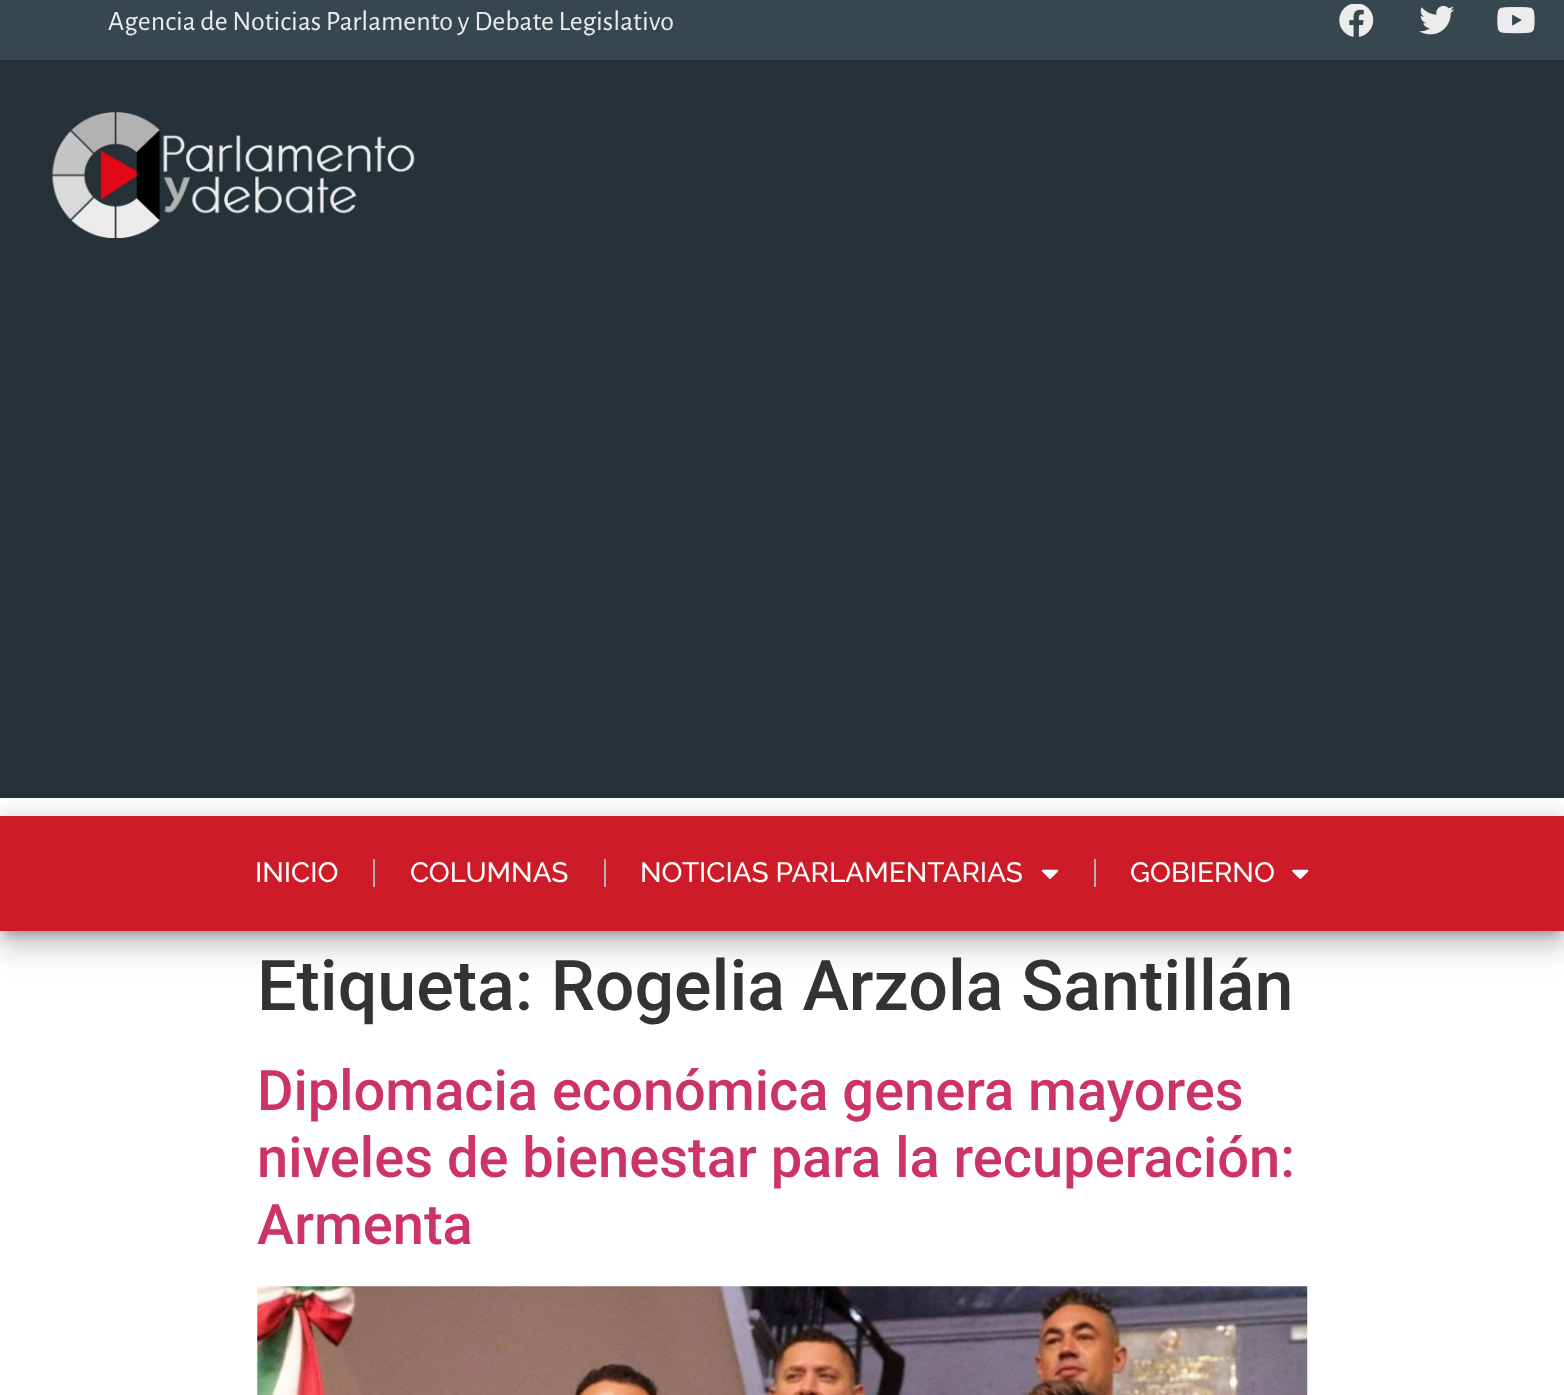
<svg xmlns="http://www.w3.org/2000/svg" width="1564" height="1395">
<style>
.a{font:28px Alegreya Sans;fill:#ececec}
.b{font:500 28px Raleway;fill:#fdfdfd}
.c{font:500 70px Roboto;fill:#333}
.d{font:500 56px Roboto;fill:#c36}
</style>
<rect width="100%" height="100%" fill="#fff"/>
<path fill="#37474f" d="M0 0h1564v60H0z"/>
<image href="1.png" x="1339" y="4" width="35" height="33"/>
<image href="2.png" x="1419" y="5" width="36" height="30"/>
<image href="3.png" x="1497" y="7" width="38" height="27"/>
<path fill="#263238" d="M0 60h1564v738H0z"/>
<image href="4.png" x="52" y="112" width="363" height="126"/>
<path fill="#00000033" filter="blur(4.5px)" d="M5 830h1554v105H5z"/>
<path fill="#0000001f" filter="blur(12px)" d="M-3 817h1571v123H-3z"/>
<path fill="#00000024" filter="blur(15px)" d="M-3 826h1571v123H-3z"/>
<path fill="#ce1b28" d="M0 816h1564v115H0z"/>
<path fill="#b1b1b1" d="M373 859h2v28H373z"/>
<path fill="#b1b1b1" d="M604 859h2v28H604z"/>
<image href="5.png" x="1041" y="869" width="18" height="10"/>
<path fill="#b1b1b1" d="M1094 859h2v28H1094z"/>
<image href="6.png" x="1292" y="869" width="17" height="10"/>
<image href="7.png" x="257" y="1286" width="1051" height="109"/>
<text class="a" x="108" y="30">Agencia de Noticias Parlamento y Debate Legislativo</text>
<text class="b" x="255" y="882">INICIO</text>
<text class="b" x="410" y="882">COLUMNAS</text>
<text class="b" x="640" y="882">NOTICIAS PARLAMENTARIAS</text>
<text class="b" x="1130" y="882">GOBIERNO</text>
<text class="c" x="257" y="1010">Etiqueta: Rogelia Arzola Santillán</text>
<text class="d" x="257" y="1110">Diplomacia económica genera mayores</text>
<text class="d" x="257" y="1177">niveles de bienestar para la recuperación:</text>
<text class="d" x="257" y="1244">Armenta</text>
</svg>
